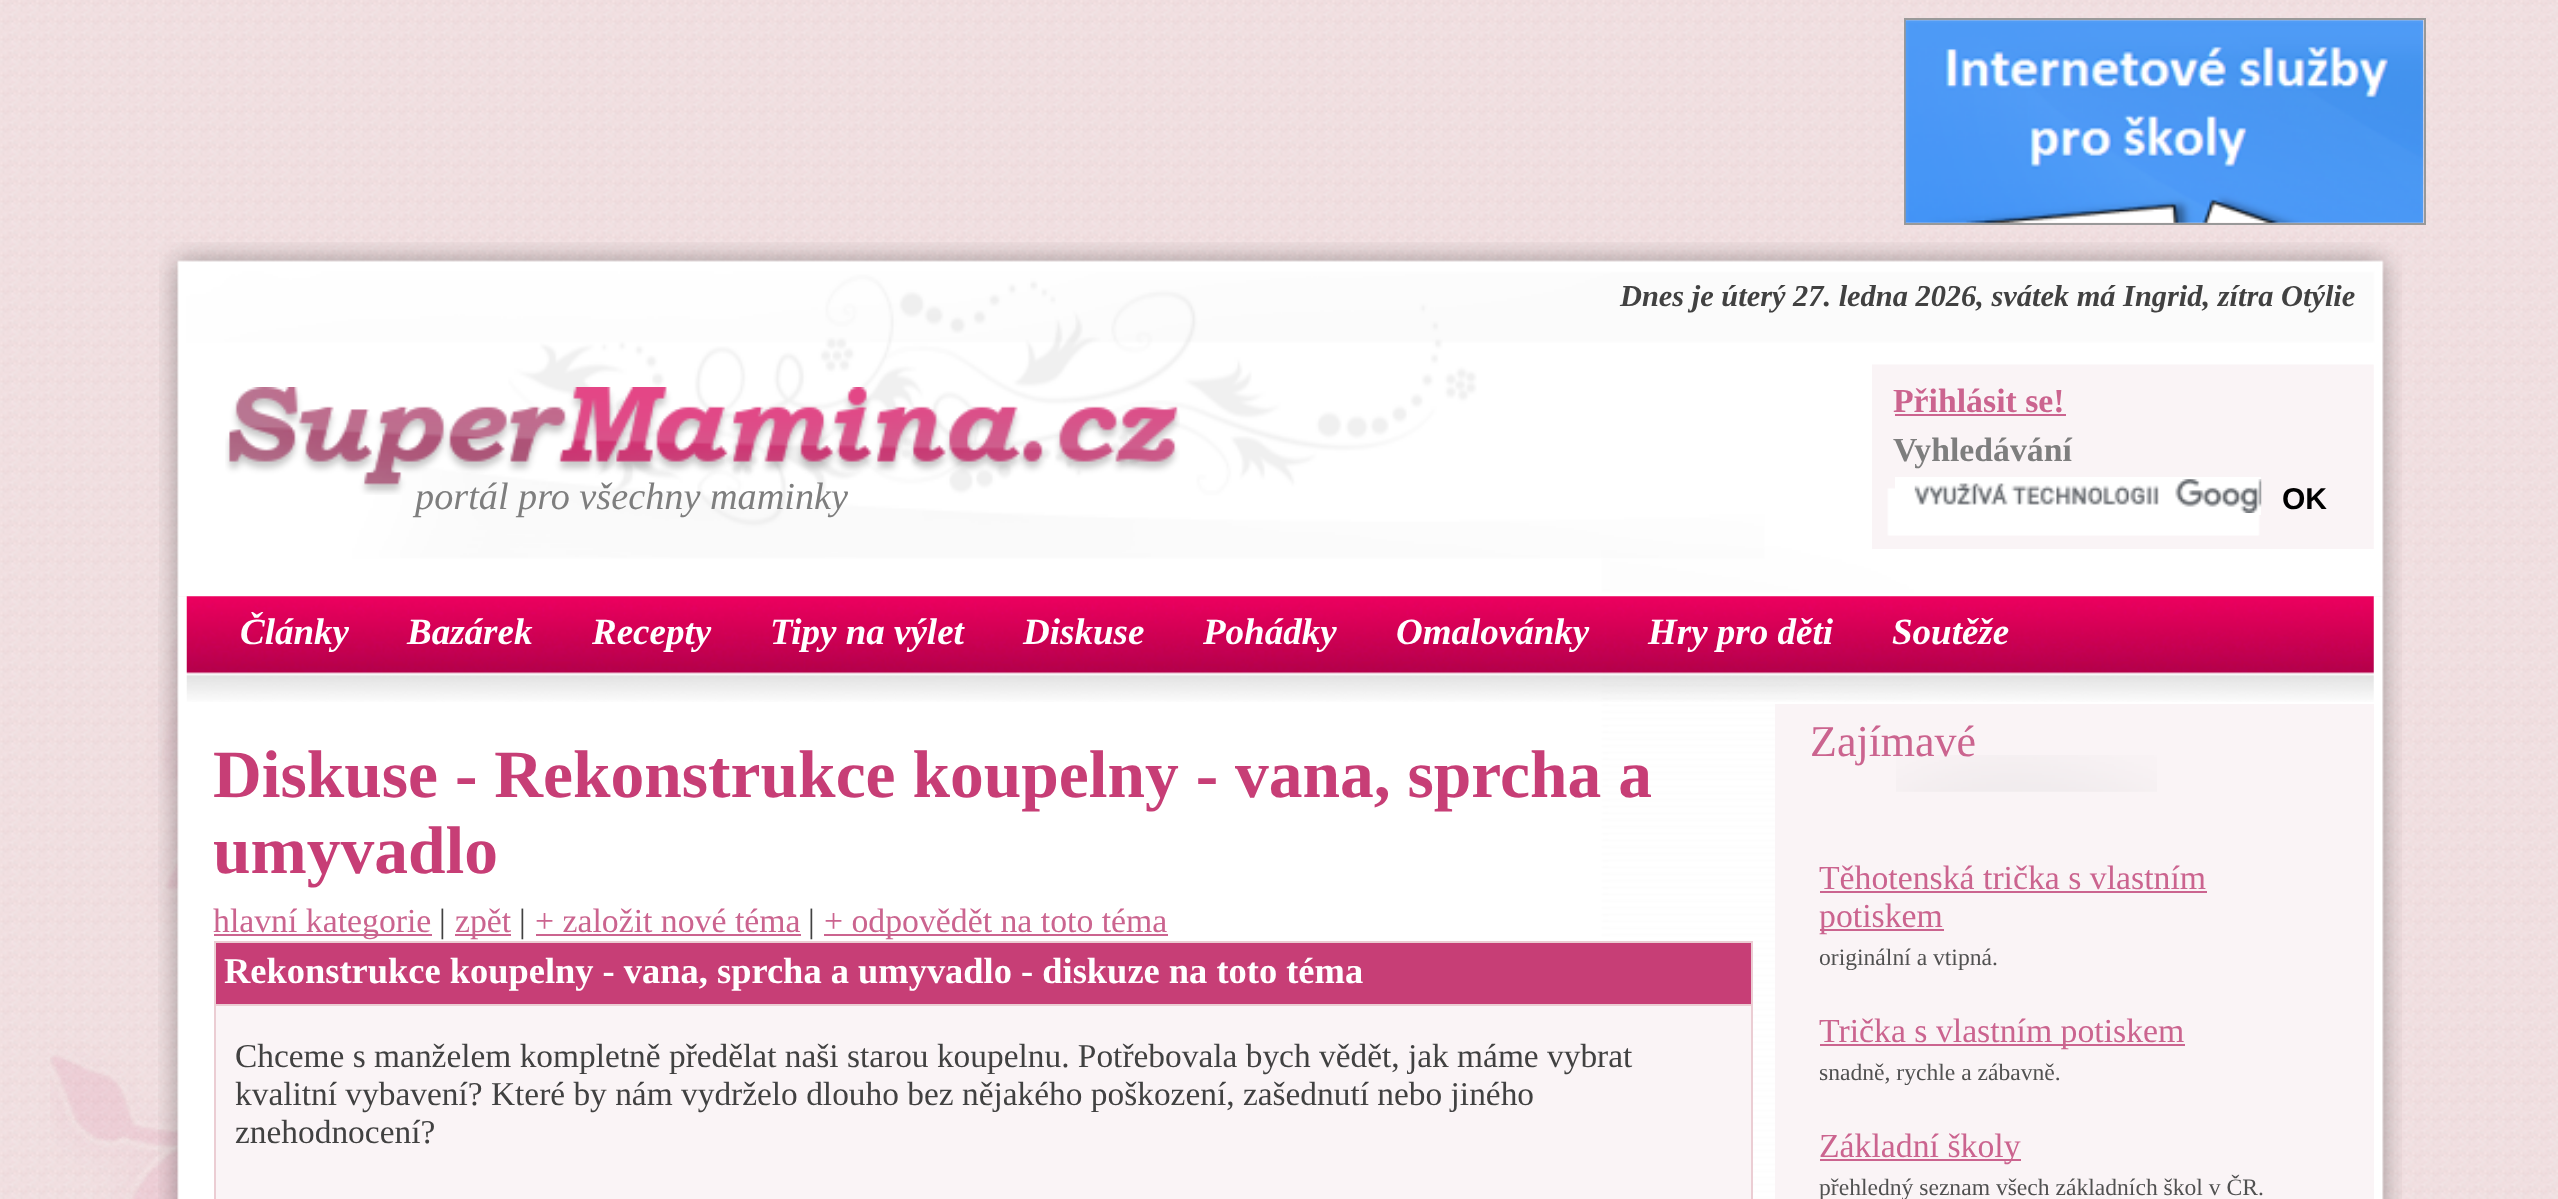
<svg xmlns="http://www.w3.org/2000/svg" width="2558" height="1199">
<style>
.a{font:italic 38.25px Liberation Serif;fill:#7e7e7e}
.b{font:italic bold 30.4px Liberation Serif;fill:#414141}
.c{font:bold 33.75px Liberation Serif;fill:#cb648f}
.d{font:bold 33.75px Liberation Serif;fill:#7e7e7e}
.e{font:bold 30px Liberation Sans;fill:#000}
.f{font:italic bold 37px Liberation Serif;fill:#fff}
.g{font:bold 67.5px Liberation Serif;fill:#c73e76}
.h{font:33.75px Liberation Serif;fill:#cb648f}
.i{font:33.75px Liberation Serif;fill:#414141}
.j{font:bold 36.45px Liberation Serif;fill:#fff}
.k{font:33.4px Liberation Serif;fill:#414141}
.l{font:44px Liberation Serif;fill:#cb648f}
.m{font:23.6px Liberation Serif;fill:#515151}
</style>
<rect width="100%" height="100%" fill="#fff"/>
<image href="1.png" x="0" y="0" width="2558" height="1199"/>
<image href="2.png" x="50" y="596" width="357" height="603"/>
<path fill="none" stroke="#999" stroke-width="2" d="M1905 19h520v205H1905z"/>
<image href="3.png" x="1905" y="20" width="519" height="203"/>
<image href="4.png" x="159" y="242" width="2243" height="355"/>
<image href="5.png" x="225" y="387" width="955" height="108"/>
<image href="6.png" x="1872" y="364" width="502" height="185"/>
<path fill="#cb648f" d="M1895 414h171v2H1895z"/>
<path fill="#fff" d="M1895 477h366v38H1895z"/>
<image href="7.png" x="1914" y="479" width="348" height="34"/>
<image href="8.png" x="158" y="596" width="2244" height="603"/>
<image href="9.png" x="186" y="596" width="2188" height="106"/>
<path fill="#cb648f" d="M214 934h218v2H214z"/>
<path fill="#cb648f" d="M455 934h56v2H455z"/>
<path fill="#cb648f" d="M536 934h265v2H536z"/>
<path fill="#cb648f" d="M824 934h344v2H824z"/>
<path fill="#ebcdd3" d="M214 941h1539v2H214z"/>
<path fill="#ebcdd3" d="M1751 941h2v258H1751z"/>
<path fill="#ebcdd3" d="M214 941h2v258H214z"/>
<path fill="#c73e76" d="M216 943h1535v61H216z"/>
<path fill="#faf4f6" d="M216 1006h1535v193H216z"/>
<path fill="#ebcdd3" d="M214 1004h1539v2H214z"/>
<path fill="#faf4f6" d="M1775 704h599v495H1775z"/>
<image href="10.png" x="1896" y="755" width="261" height="37"/>
<path fill="#cb648f" d="M1820 891h387v2H1820z"/>
<path fill="#cb648f" d="M1820 929h124v2H1820z"/>
<path fill="#cb648f" d="M1820 1044h365v2H1820z"/>
<path fill="#cb648f" d="M1820 1159h201v2H1820z"/>
<text class="a" x="415" y="509">portál pro všechny maminky</text>
<text class="b" x="1620" y="306">Dnes je úterý 27. ledna 2026, svátek má Ingrid, zítra Otýlie</text>
<text class="c" x="1893" y="412">Přihlásit se!</text>
<text class="d" x="1893" y="461">Vyhledávání</text>
<text class="e" x="2282" y="509">OK</text>
<text class="f" x="240" y="644">Články</text>
<text class="f" x="407" y="644">Bazárek</text>
<text class="f" x="592" y="644">Recepty</text>
<text class="f" x="770" y="644">Tipy na výlet</text>
<text class="f" x="1023" y="644">Diskuse</text>
<text class="f" x="1203" y="644">Pohádky</text>
<text class="f" x="1396" y="644">Omalovánky</text>
<text class="f" x="1648" y="644">Hry pro děti</text>
<text class="f" x="1892" y="644">Soutěže</text>
<text class="g" x="213" y="797">Diskuse - Rekonstrukce koupelny - vana, sprcha a</text>
<text class="g" x="213" y="873">umyvadlo</text>
<text class="h" x="213" y="932">hlavní kategorie</text>
<text class="i" x="439" y="932">|</text>
<text class="h" x="455" y="932">zpět</text>
<text class="i" x="519" y="932">|</text>
<text class="h" x="535" y="932">+ založit nové téma</text>
<text class="i" x="808" y="932">|</text>
<text class="h" x="824" y="932">+ odpovědět na toto téma</text>
<text class="j" x="224" y="983">Rekonstrukce koupelny - vana, sprcha a umyvadlo - diskuze na toto téma</text>
<text class="k" x="235" y="1067">Chceme s manželem kompletně předělat naši starou koupelnu. Potřebovala bych vědět, jak máme vybrat</text>
<text class="k" x="235" y="1105">kvalitní vybavení? Které by nám vydrželo dlouho bez nějakého poškození, zašednutí nebo jiného</text>
<text class="k" x="235" y="1143">znehodnocení?</text>
<text class="l" x="1810" y="756">Zajímavé</text>
<text class="h" x="1819" y="889">Těhotenská trička s vlastním</text>
<text class="h" x="1819" y="927">potiskem</text>
<text class="m" x="1819" y="965">originální a vtipná.</text>
<text class="h" x="1819" y="1042">Trička s vlastním potiskem</text>
<text class="m" x="1819" y="1080">snadně, rychle a zábavně.</text>
<text class="h" x="1819" y="1157">Základní školy</text>
<text class="m" x="1819" y="1195">přehledný seznam všech základních škol v ČR.</text>
</svg>
